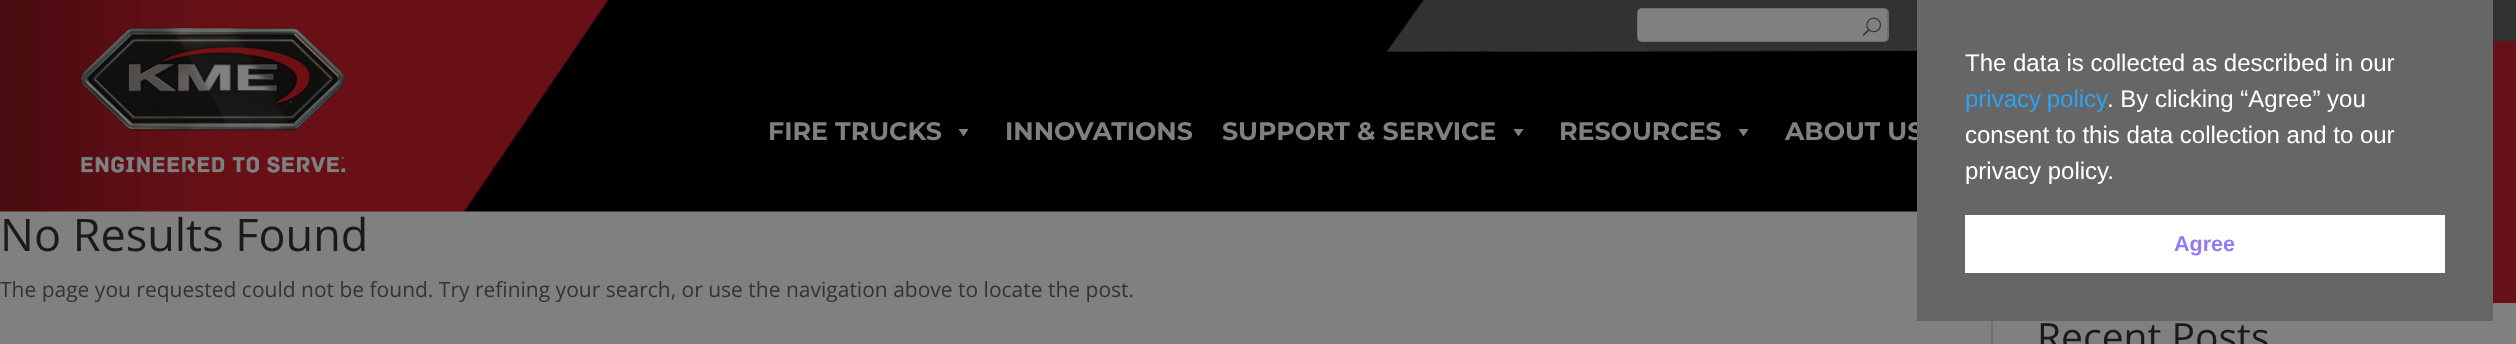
<svg xmlns="http://www.w3.org/2000/svg" width="2516" height="344">
<style>
.a{font:bold 25.25px Montserrat;fill:#808080}
.b{font:bold 21.5px Liberation Sans;fill:#937afc}
.c{font:24px Liberation Sans;fill:#fff}
.d{font:24px Liberation Sans;fill:#2ea3f2}
.e{font:45px Open Sans;fill:#1a1a1a}
.f{font:21px Open Sans;fill:#333}
.g{font:39px Open Sans;fill:#1a1a1a}
</style>
<rect width="100%" height="100%" fill="#808080"/>
<image href="1.png" x="0" y="0" width="2516" height="212"/>
<rect fill="none" stroke="#6f6f6f" stroke-width="2" x="1638" y="9" width="250" height="32" rx="4"/>
<rect fill="#808080" x="1638" y="9" width="249" height="32" rx="3"/>
<image href="2.png" x="1863" y="17" width="18" height="19"/>
<image href="3.png" x="80" y="27" width="266" height="146"/>
<path fill="#808080" d="M968.5 129l-5 7.5l-5-7.5z"/>
<path fill="#808080" d="M1523.5 129l-5 7.5l-5-7.5z"/>
<path fill="#808080" d="M1748.5 129l-5 7.5l-5-7.5z"/>
<path fill="#681017" d="M2493 41h23v262H2493z"/>
<path fill="#717171" d="M1991 321h2v23H1991z"/>
<text class="a" x="768" y="140">FIRE TRUCKS</text>
<text class="a" x="1005" y="140">INNOVATIONS</text>
<text class="a" x="1222" y="140">SUPPORT &amp; SERVICE</text>
<text class="a" x="1559" y="140">RESOURCES</text>
<text class="a" x="1785" y="140">ABOUT US</text>
<path fill="#666" d="M1917 0h576v321H1917z"/>
<path fill="#fff" d="M1965 215h480v58H1965z"/>
<text class="b" x="2174" y="251">Agree</text>
<text class="c" x="1965" y="179">privacy policy.</text>
<text class="c" x="1965" y="143">consent to this data collection and to our</text>
<text class="c" x="2107" y="107">. By clicking “Agree” you</text>
<text class="d" x="1965" y="107" word-spacing="-1">privacy policy</text>
<text class="c" x="1965" y="71">The data is collected as described in our</text>
<text class="e" x="0" y="251">No Results Found</text>
<text class="f" x="0" y="297">The page you requested could not be found. Try refining your search, or use the navigation above to locate the post.</text>
<text class="g" x="2037" y="351">Recent Posts</text>
</svg>
